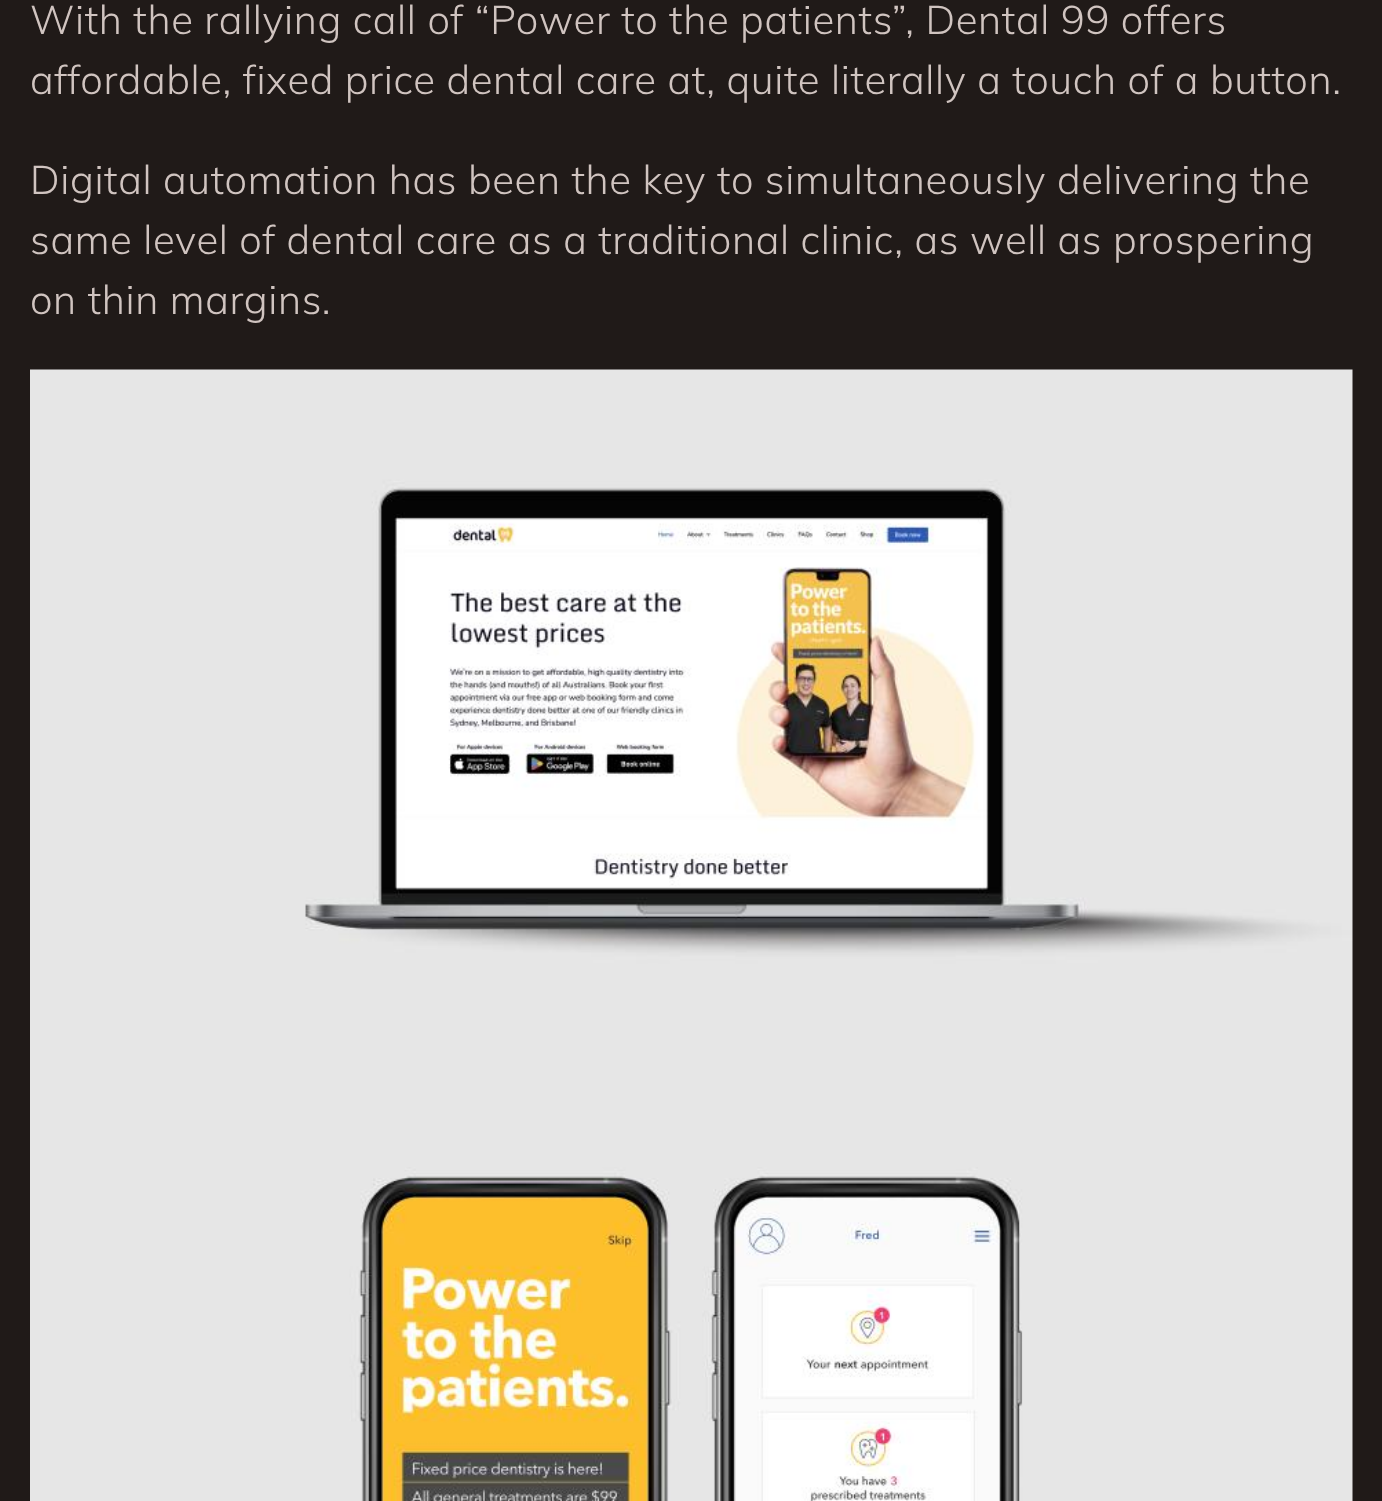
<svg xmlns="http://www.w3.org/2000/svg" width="1382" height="1501">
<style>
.a{font:300 40px Mulish;letter-spacing:0.62px;fill:#d0c4c0}
</style>
<rect width="100%" height="100%" fill="#201a18"/>
<image href="1.png" x="30" y="369" width="1323" height="743"/>
<image href="2.png" x="30" y="1112" width="1323" height="389"/>
<text class="a" x="30" y="34">With the rallying call of “Power to the patients”, Dental 99 offers</text>
<text class="a" x="30" y="94">affordable, fixed price dental care at, quite literally a touch of a button.</text>
<text class="a" x="30" y="194">Digital automation has been the key to simultaneously delivering the</text>
<text class="a" x="30" y="254">same level of dental care as a traditional clinic, as well as prospering</text>
<text class="a" x="30" y="314">on thin margins.</text>
</svg>
